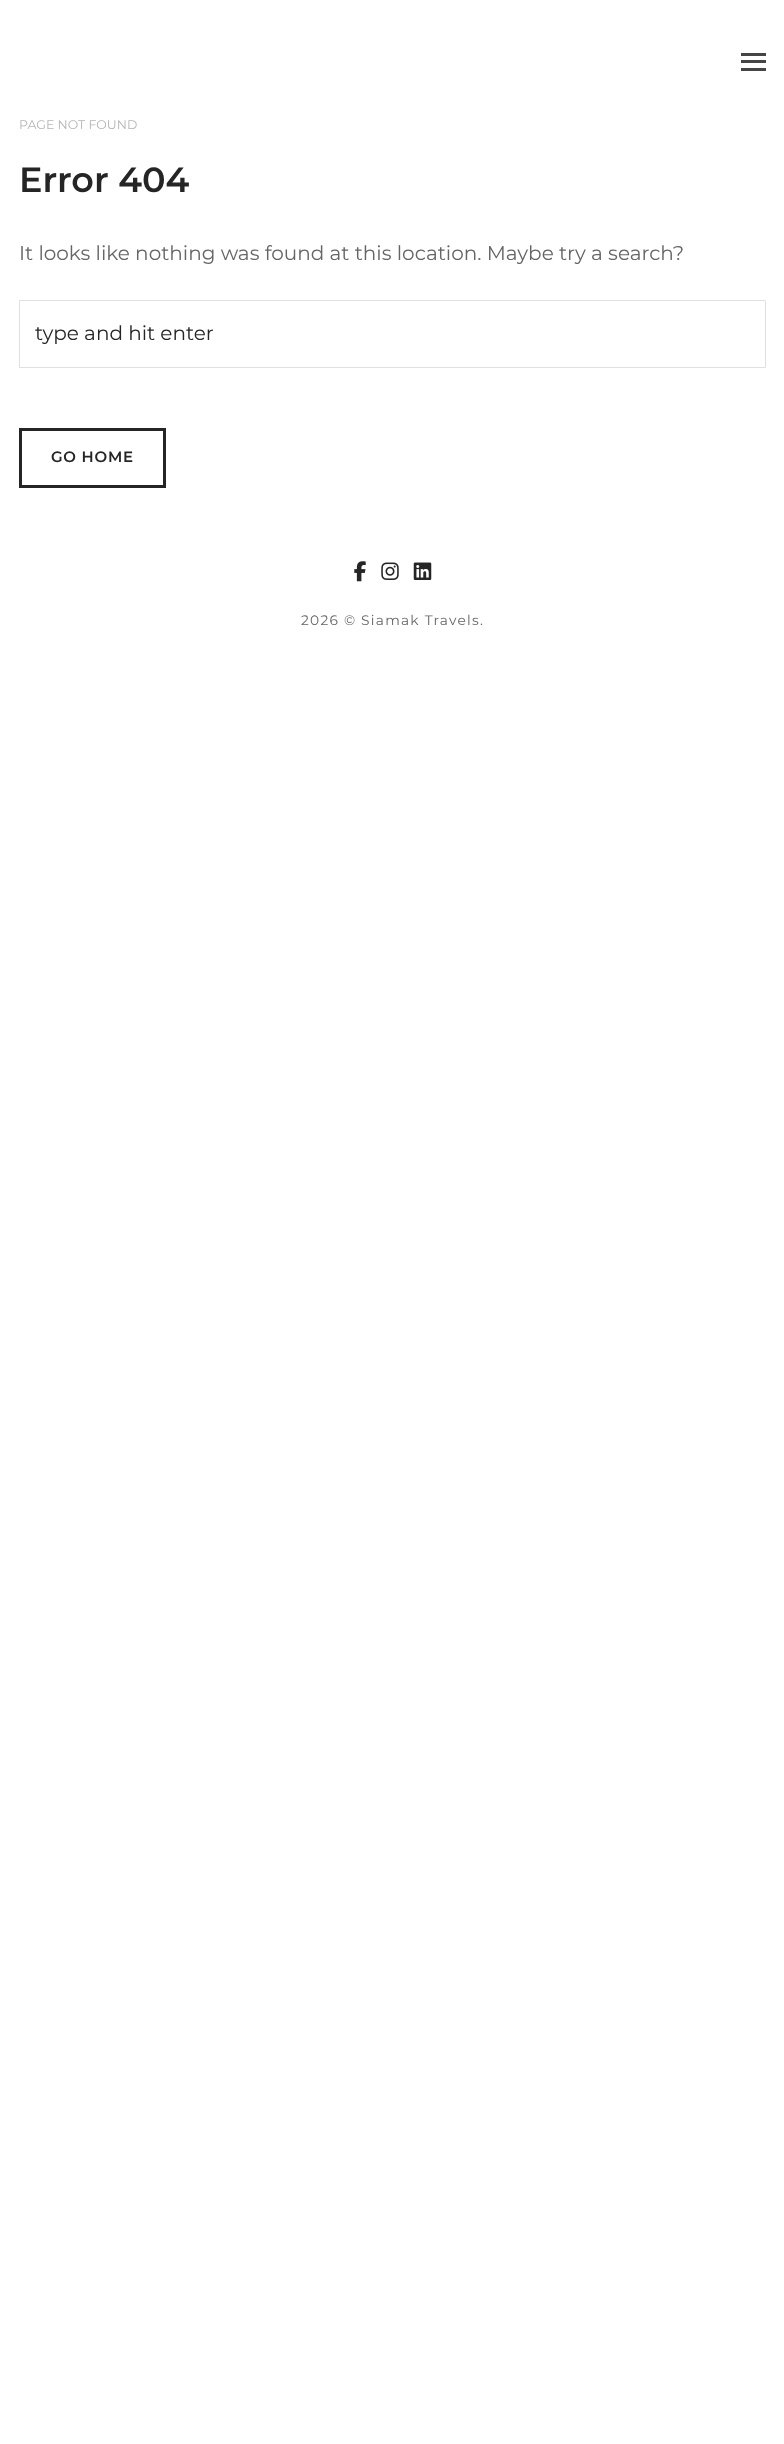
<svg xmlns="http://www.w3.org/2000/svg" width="784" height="2444">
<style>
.a{font:12.5px Montserrat;fill:#b5b5b5}
.b{font:600 35px Montserrat;fill:#252525}
.c{font:20px Montserrat;fill:#656565}
.d{font:20px Montserrat;fill:#252525}
.e{font:600 15px Montserrat;letter-spacing:0.75px;fill:#252525}
.f{font:13.75px Montserrat;letter-spacing:1.25px;fill:#656565}
</style>
<rect width="100%" height="100%" fill="#fff"/>
<path fill="#454545" d="M741 60h25v3H741z"/>
<path fill="#454545" d="M741 53h25v3H741z"/>
<path fill="#454545" d="M741 68h25v3H741z"/>
<path fill="none" stroke="#e0e0e0" d="M19.5 300.5h746v67H19.5z"/>
<path fill="none" stroke="#252525" stroke-width="3" d="M20.5 429.5h144v57H20.5z"/>
<image href="1.png" x="354" y="561" width="12" height="21"/>
<image href="2.png" x="381" y="562" width="18" height="18"/>
<image href="3.png" x="413" y="562" width="19" height="18"/>
<text class="a" x="19" y="129">PAGE NOT FOUND</text>
<text class="b" x="19" y="192">Error 404</text>
<text class="c" x="19" y="260">It looks like nothing was found at this location. Maybe try a search?</text>
<text class="d" x="35" y="340">type and hit enter</text>
<text class="e" x="51" y="462">GO HOME</text>
<text class="f" x="301" y="625">2026 © Siamak Travels.</text>
</svg>
